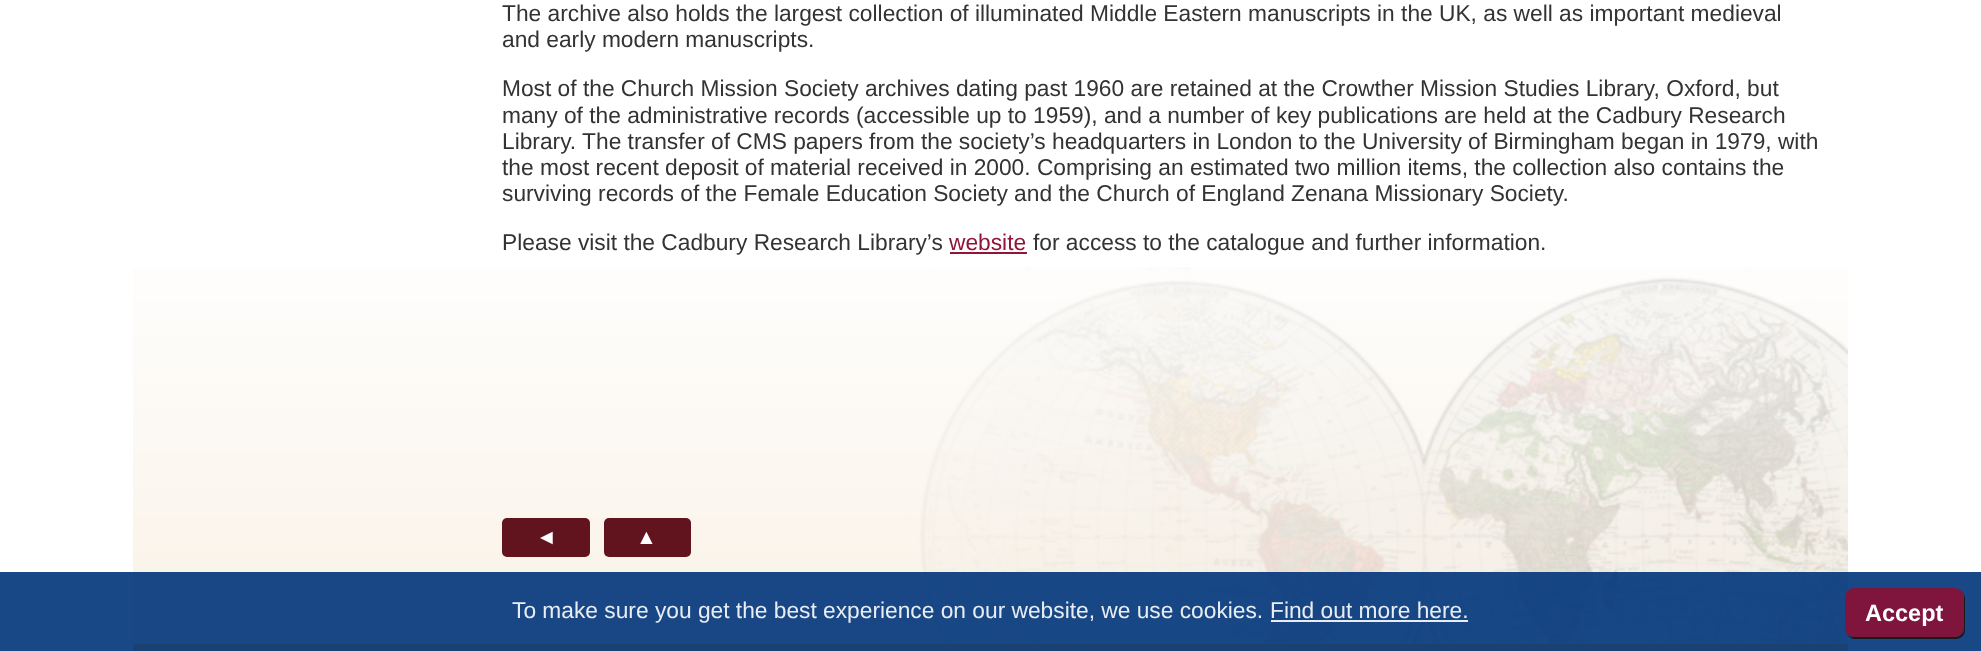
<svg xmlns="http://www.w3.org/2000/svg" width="1981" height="651">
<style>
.a{font:22.75px Liberation Sans;fill:#333}
.b{font:22.75px Liberation Sans;fill:#91153a}
.c{font:bold 21px Liberation Sans;fill:#fff}
.d{font:22.75px Liberation Sans;fill:#e8edf3}
.e{font:bold 23.5px Liberation Sans;fill:#fff}
</style>
<rect width="100%" height="100%" fill="#fff"/>
<image href="1.png" x="133" y="267" width="1715" height="377"/>
<path fill="#91153a" d="M950 252h77v2H950z"/>
<rect fill="#61141e" x="502" y="518" width="88" height="39" rx="5"/>
<rect fill="#61141e" x="604" y="518" width="87" height="39" rx="5"/>
<path fill="#f8b230" d="M133 644h1715v7H133z"/>
<path fill="#00347ae6" d="M0 572h1981v79H0z"/>
<path fill="#e8ecf3" d="M1271 620h197v2H1271z"/>
<path fill="#1a1a1a" d="M1847 635c2 2 5 4 8 4h101c5 0 9-4 9-9v-31c0-2-1-5-2-6l1 4v31c0 5-4 9-9 9h-102c-2 0-4-1-6-2z"/>
<rect fill="#8b0e35e6" x="1845" y="588" width="119" height="49" rx="9"/>
<text class="a" x="502" y="21">The archive also holds the largest collection of illuminated Middle Eastern manuscripts in the UK, as well as important medieval</text>
<text class="a" x="502" y="47">and early modern manuscripts.</text>
<text class="a" x="502" y="96">Most of the Church Mission Society archives dating past 1960 are retained at the Crowther Mission Studies Library, Oxford, but</text>
<text class="a" x="502" y="123">many of the administrative records (accessible up to 1959), and a number of key publications are held at the Cadbury Research</text>
<text class="a" x="502" y="149">Library. The transfer of CMS papers from the society’s headquarters in London to the University of Birmingham began in 1979, with</text>
<text class="a" x="502" y="175">the most recent deposit of material received in 2000. Comprising an estimated two million items, the collection also contains the</text>
<text class="a" x="502" y="201">surviving records of the Female Education Society and the Church of England Zenana Missionary Society.</text>
<text class="a" x="502" y="250">Please visit the Cadbury Research Library’s</text>
<text class="b" x="949" y="250">website</text>
<text class="a" x="1033" y="250">for access to the catalogue and further information.</text>
<text class="c" x="536" y="544">◄</text>
<text class="c" x="636" y="544">▲</text>
<text class="d" x="512" y="618">To make sure you get the best experience on our website, we use cookies.</text>
<text class="d" x="1270" y="618">Find out more here.</text>
<text class="e" x="1865" y="621">Accept</text>
</svg>
